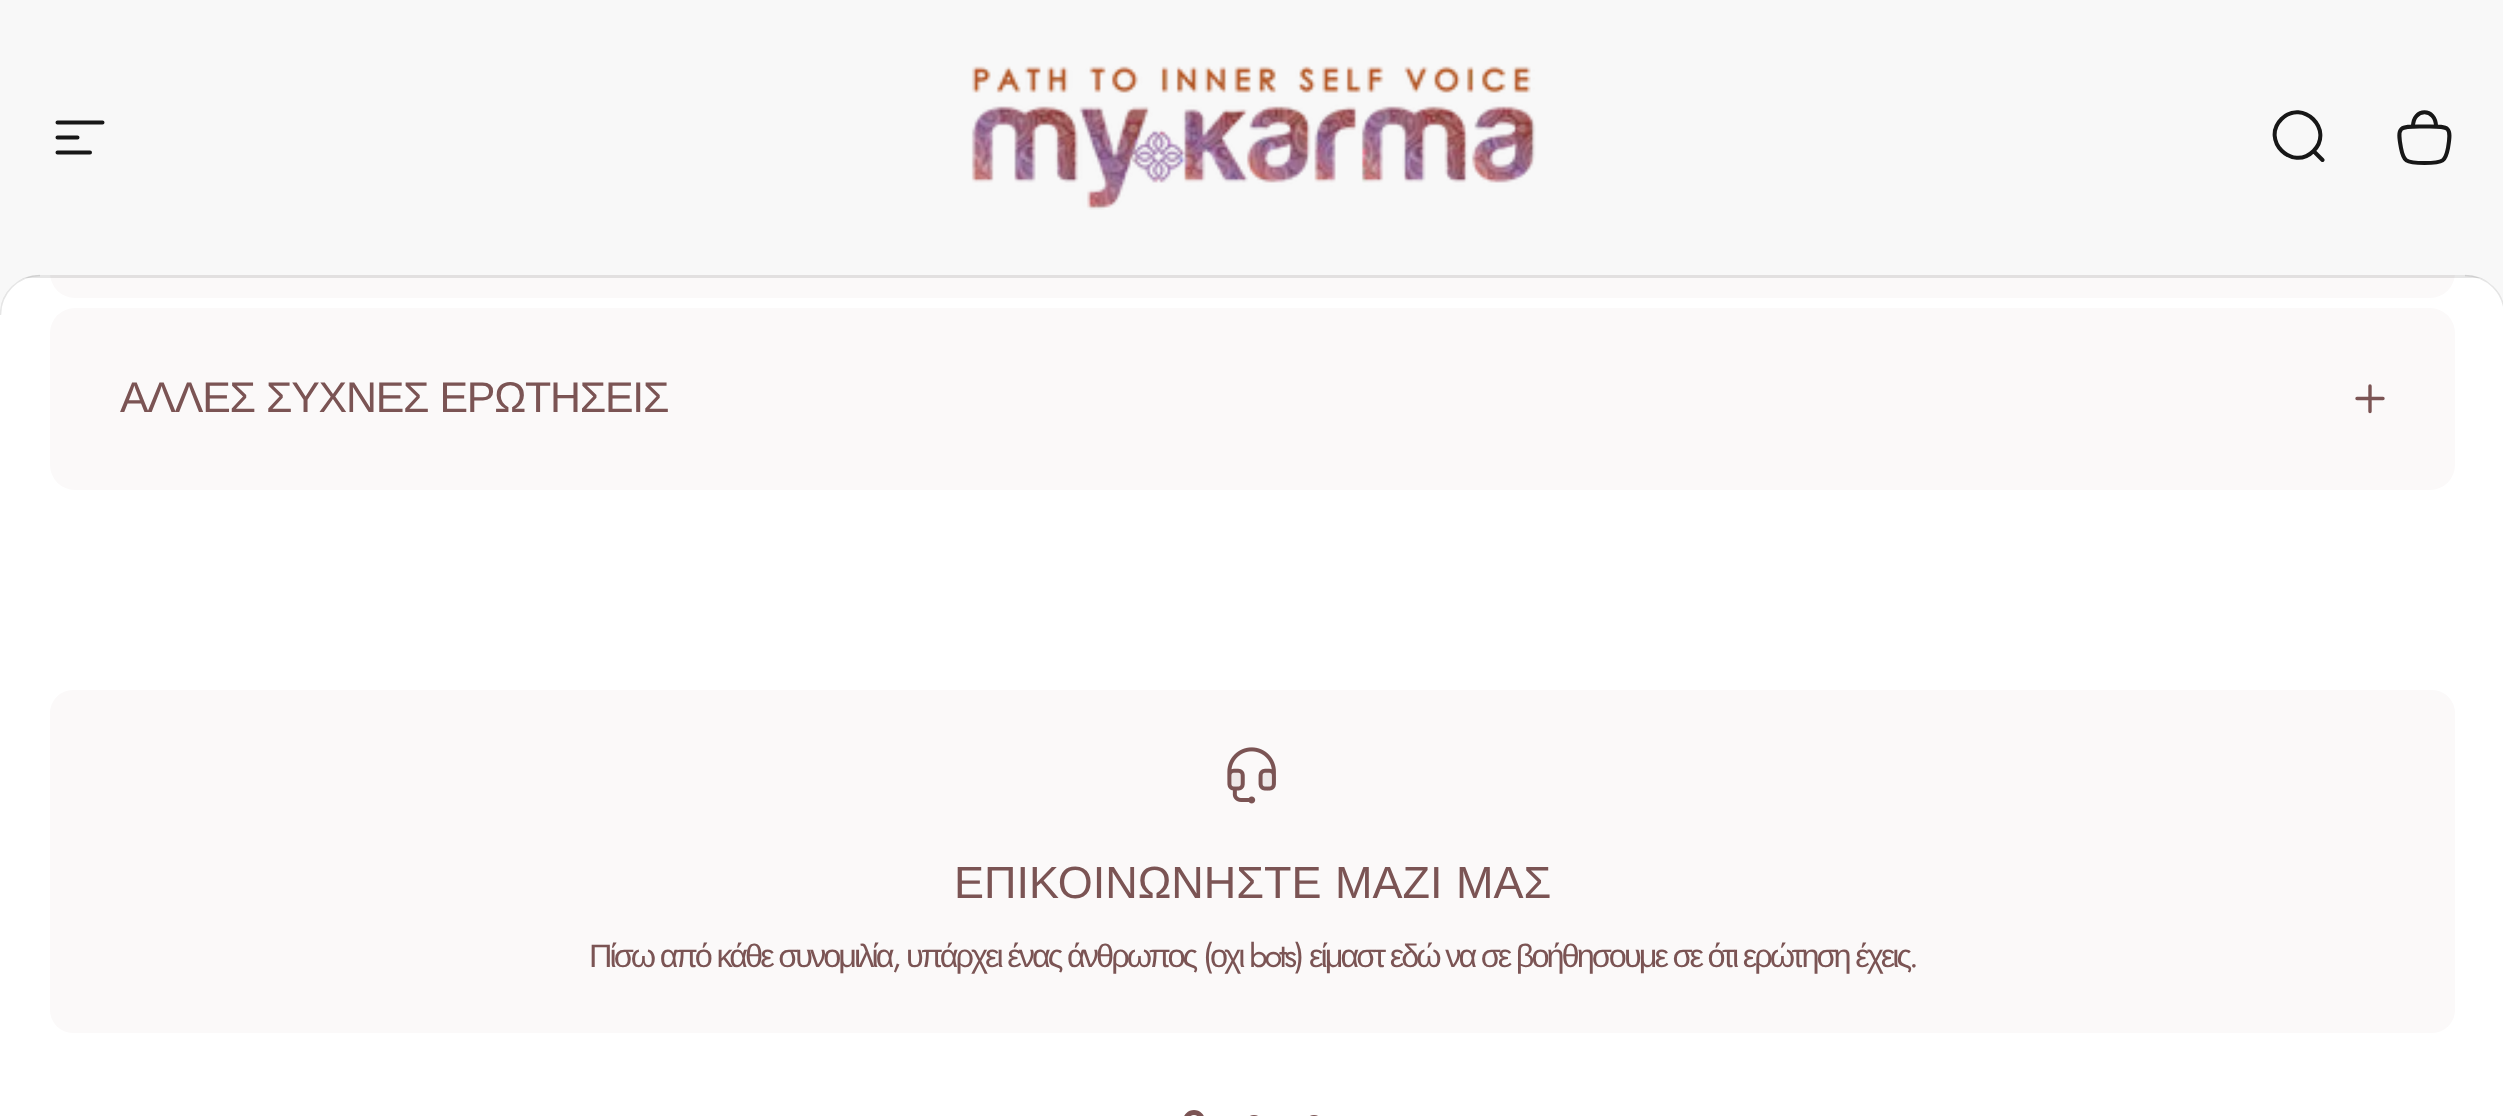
<svg xmlns="http://www.w3.org/2000/svg" width="2503" height="1116">
<style>
.a{font:42.9px Liberation Sans;letter-spacing:-1.25px;fill:#7b5454}
.b{font:45px Liberation Sans;fill:#7b5454}
.c{font:32.5px Liberation Sans;letter-spacing:-3px;fill:#7b5454}
.d{font:32.5px Jost;letter-spacing:-3px;fill:#7b5454}
</style>
<rect width="100%" height="100%" fill="#fff"/>
<rect fill="#fbf9f9" x="50" y="115" width="2405" height="183" rx="25"/>
<path fill="#f8f8f8" d="M0 0h2503v275H0z"/>
<path fill="none" stroke="#171717" stroke-width="4" stroke-linecap="round" d="M57.5 122.5h45m-45 15h20m-20 15h32.5"/>
<image href="1.png" x="971" y="66" width="565" height="144"/>
<path fill="none" stroke="#171717" stroke-width="4" stroke-linecap="round" d="M2322.5 160l-9-9m0 0c21-21-11-53-32-32c-21 21 11 53 32 32z"/>
<path fill="none" stroke="#171717" stroke-width="4" d="M2413 126.5c0-19 23-19 23 0m-11.5 0c-24.5 0-28-1.5-23.5 21.5c2.5 13 4 15 23.5 15c19.5 0 21-2 23.5-15c4-23 1-21.5-23.5-21.5z"/>
<path fill="#1717171c" d="M25 275h2455v3H25z"/>
<path fill="#f8f8f8" fill-rule="evenodd" d="M40 275h-40v40c0-22 18-40 40-40z"/>
<path fill="none" stroke="#1717171c" stroke-width="1.4" d="M.5 315c0-22 17.5-39.5 39.5-39.5"/>
<path fill="#f8f8f8" fill-rule="evenodd" d="M2465 275h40v40c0-22-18-40-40-40z"/>
<path fill="none" stroke="#1717171c" stroke-width="1.4" d="M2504.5 315c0-22-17.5-39.5-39.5-39.5"/>
<rect fill="#fbf9f9" x="50" y="308" width="2405" height="182" rx="25"/>
<path fill="none" stroke="#7b5454" stroke-width="3.4" stroke-linecap="round" stroke-linejoin="round" d="M2370 411.5v-25.5m13 12.5h-26"/>
<rect fill="#fbf9f9" x="50" y="690" width="2405" height="343" rx="23"/>
<image href="2.png" x="1227" y="747" width="49" height="57"/>
<circle fill="none" stroke="#7b5454" stroke-width="5" cx="1194" cy="1121" r="8.5"/>
<rect fill="#7b5454" x="1248" y="1115" width="12" height="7" rx="6"/>
<rect fill="#7b5454" x="1308" y="1115" width="12" height="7" rx="6"/>
<text class="a" x="120" y="412" word-spacing="0.5">ΑΛΛΕΣ ΣΥΧΝΕΣ ΕΡΩΤΗΣΕΙΣ</text>
<text class="b" x="954" y="898" word-spacing="1">ΕΠΙΚΟΙΝΩΝΗΣΤΕ ΜΑΖΙ ΜΑΣ</text>
<text class="c" x="589" y="967" word-spacing="0.5">Πίσω από κάθε συνομιλία</text>
<text class="d" x="892" y="967">,</text>
<text class="c" x="906" y="967" word-spacing="0.5">υπάρχει ένας άνθρωπος</text>
<text class="d" x="1203" y="967">(</text>
<text class="c" x="1210" y="967">οχι</text>
<text class="d" x="1249" y="967">bots)</text>
<text class="c" x="1309" y="967" word-spacing="0.5">είμαστ εδώ να σε βοήθησουμε σε ότι ερώτηση έχεις</text>
<text class="d" x="1909" y="967">.</text>
</svg>
